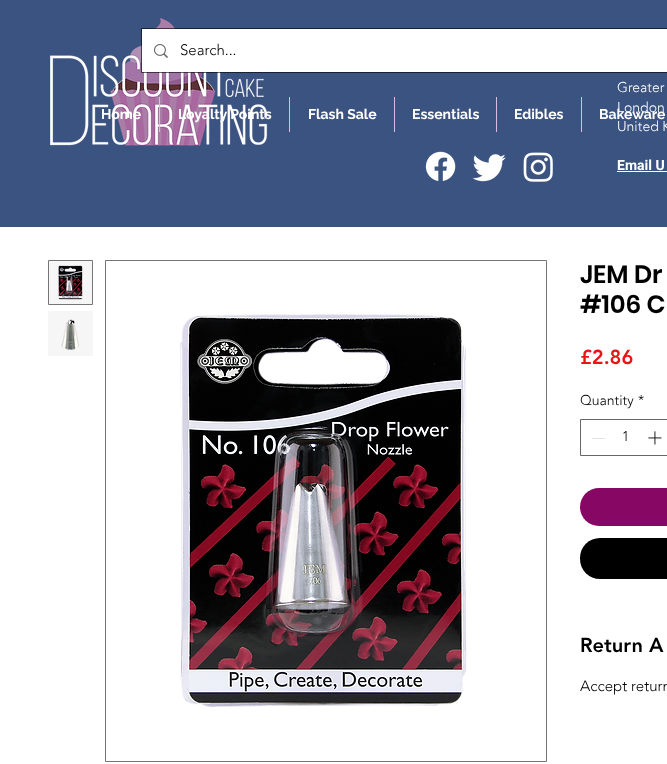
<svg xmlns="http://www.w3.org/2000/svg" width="667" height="764">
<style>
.a{font:300 15px 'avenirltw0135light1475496';fill:#000}
.b{font:bold 14px Raleway;fill:#fff}
.c{font:300 14px 'avenirltw0135light1475496';fill:#fff}
.d{font:bold 14px Heebo;fill:#fff}
.e{font:600 25px Poppins;fill:#000}
.f{font:900 20px 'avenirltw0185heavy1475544';fill:#eb1414}
.g{font:300 14px 'avenirltw0135light1475496';fill:#000}
.h{font:900 20px 'avenirltw0185heavy1475544';fill:#000}
</style>
<rect width="100%" height="100%" fill="#fff"/>
<path fill="#3b5380" d="M0 0h667v227H0z"/>
<image href="1.png" x="50" y="18" width="218" height="128"/>
<path fill="none" stroke="#00000099" d="M141.5 28.5h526v44H141.5z"/>
<path fill="#fff" d="M142 29h525v43H142z"/>
<image href="2.png" x="154" y="44" width="14" height="14"/>
<path fill="#d8bde2" d="M159 97h1v35H159z"/>
<path fill="#d8bde2" d="M289 97h1v35H289z"/>
<path fill="#d8bde2" d="M394 97h1v35H394z"/>
<path fill="#d8bde2" d="M496 97h1v35H496z"/>
<path fill="#d8bde2" d="M581 97h1v35H581z"/>
<image href="3.png" x="425" y="151" width="31" height="30"/>
<image href="4.png" x="472" y="154" width="34" height="28"/>
<image href="5.png" x="523" y="152" width="30" height="30"/>
<path fill="#fff" d="M617 171h50v1H617z"/>
<path fill="#f6f6f6" stroke="#757575" d="M48.5 260.5h44v44H48.5z"/>
<image href="6.png" x="58" y="265" width="25" height="35"/>
<path fill="#f6f6f6" d="M48 311h45v45H48z"/>
<image href="7.png" x="61" y="319" width="19" height="31"/>
<path fill="none" stroke="#757575" d="M105.5 260.5h441v501H105.5z"/>
<image href="8.png" x="179" y="314" width="288" height="393"/>
<path fill="none" stroke="#666" d="M580.5 419.5h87v36H580.5z"/>
<path fill="#e3e3e3" d="M592 438h13v1H592z"/>
<image href="9.png" x="648" y="431" width="14" height="14"/>
<rect fill="#860764" x="580" y="488" width="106" height="38" rx="19"/>
<rect fill="#000" x="580" y="538" width="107" height="41" rx="20"/>
<text class="a" x="180" y="55">Search...</text>
<text class="b" x="101" y="119">Home</text>
<text class="b" x="178" y="119">Loyalty Points</text>
<text class="b" x="308" y="119">Flash Sale</text>
<text class="b" x="412" y="119">Essentials</text>
<text class="b" x="514" y="119">Edibles</text>
<text class="b" x="599" y="119">Bakeware</text>
<text class="c" x="617" y="92">Greater</text>
<text class="c" x="617" y="112">London</text>
<text class="c" x="617" y="131">United K</text>
<text class="d" x="617" y="170">Email U</text>
<text class="e" x="580" y="283">JEM Dr</text>
<text class="e" x="580" y="313">#106 C</text>
<text class="f" x="580" y="364">£2.86</text>
<text class="g" x="580" y="405">Quantity</text>
<text class="g" x="638" y="405">*</text>
<text class="g" x="622" y="441">1</text>
<text class="h" x="580" y="652">Return A</text>
<text class="a" x="580" y="691">Accept return</text>
</svg>
